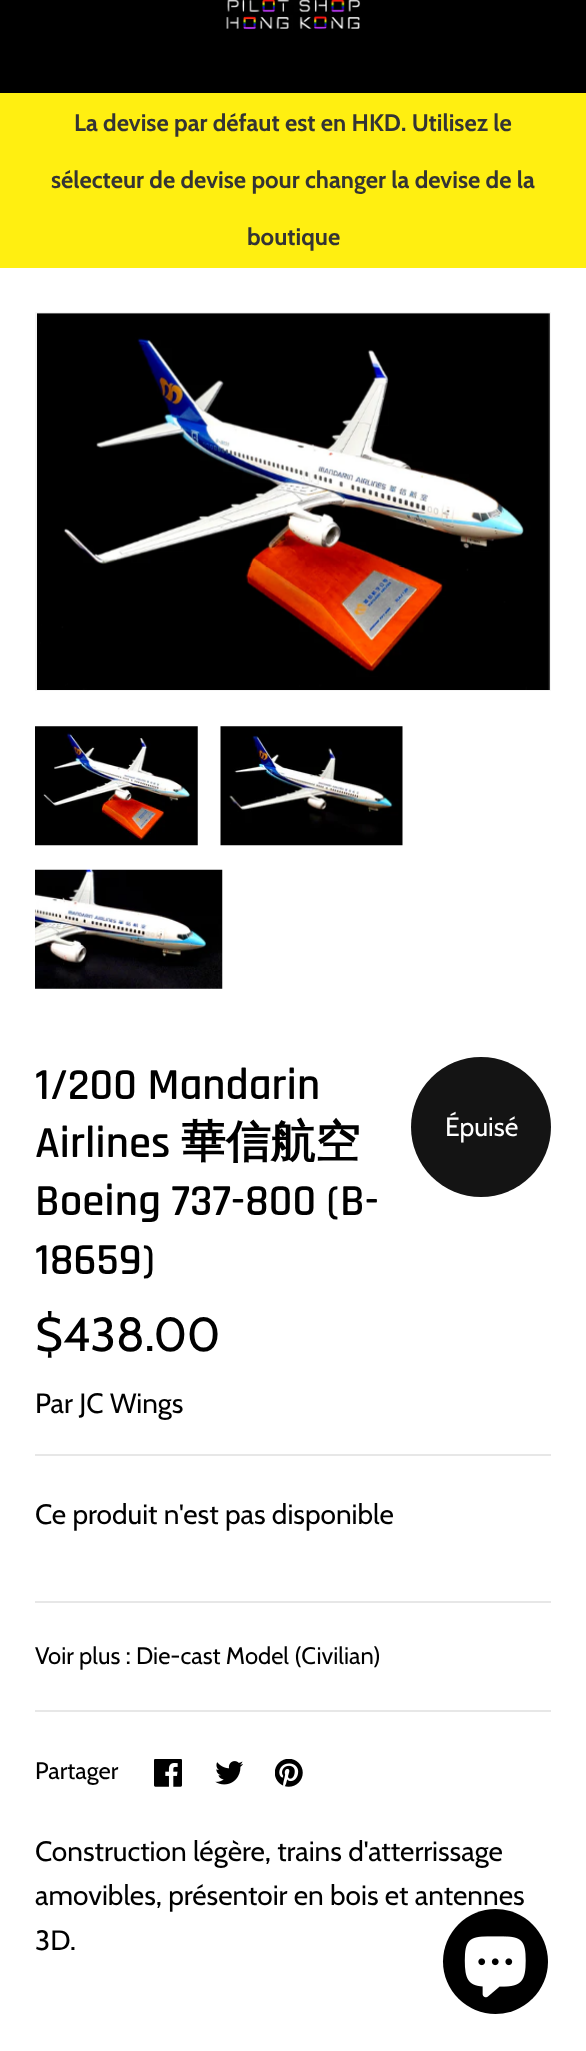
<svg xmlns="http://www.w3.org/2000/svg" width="586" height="2051">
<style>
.a{font:bold 23.8px Cabin;fill:#343434}
.b{font:600 44.75px Rajdhani;fill:#000}
.c{font:bold 44.75px WenQuanYi Zen Hei;fill:#000}
.d{font:26.5px Cabin;fill:#fff}
.e{font:47.5px Cabin;fill:#000}
.f{font:28px Cabin;fill:#000}
.g{font:23.8px Cabin;fill:#000}
</style>
<rect width="100%" height="100%" fill="#fff"/>
<path fill="#000" d="M0 0h586v93H0z"/>
<image href="1.png" x="226" y="0" width="135" height="30"/>
<path fill="#ffef11" d="M0 93h586v175H0z"/>
<path fill="none" stroke="#f5f5f5" stroke-width="2" d="M36 313h514v377H36z"/>
<image href="2.png" x="37" y="313" width="513" height="377"/>
<image href="3.png" x="35" y="726" width="163" height="120"/>
<image href="4.png" x="220" y="726" width="183" height="120"/>
<image href="5.png" x="35" y="869" width="188" height="120"/>
<circle fill="#141414" cx="481" cy="1127" r="70"/>
<path fill="#e7e7e7" d="M35 1454h516v2H35z"/>
<path fill="#e7e7e7" d="M35 1601h516v2H35z"/>
<path fill="#e7e7e7" d="M35 1710h516v2H35z"/>
<image href="6.png" x="154" y="1759" width="28" height="28"/>
<image href="7.png" x="215" y="1761" width="28" height="24"/>
<image href="8.png" x="275" y="1759" width="28" height="28"/>
<circle fill="#000" cx="495.5" cy="1961.5" r="52.5"/>
<image href="9.png" x="464" y="1936" width="62" height="62"/>
<text class="a" x="74" y="131">La devise par défaut est en HKD. Utilisez le</text>
<text class="a" x="51" y="188">sélecteur de devise pour changer la devise de la</text>
<text class="a" x="247" y="245">boutique</text>
<text class="b" x="35" y="1099">1/200 Mandarin</text>
<text class="b" x="35" y="1157">Airlines</text>
<text class="c" x="181" y="1157">華信航空</text>
<text class="b" x="35" y="1215">Boeing 737-800 (B-</text>
<text class="b" x="35" y="1274">18659)</text>
<text class="d" x="445" y="1136">Épuisé</text>
<text class="e" x="35" y="1351">$438.00</text>
<text class="f" x="35" y="1413">Par JC Wings</text>
<text class="f" x="35" y="1524">Ce produit n'est pas disponible</text>
<text class="g" x="35" y="1664">Voir plus : Die-cast Model (Civilian)</text>
<text class="g" x="35" y="1779">Partager</text>
<text class="f" x="35" y="1861">Construction légère, trains d'atterrissage</text>
<text class="f" x="35" y="1905">amovibles, présentoir en bois et antennes</text>
<text class="f" x="35" y="1950">3D.</text>
</svg>
